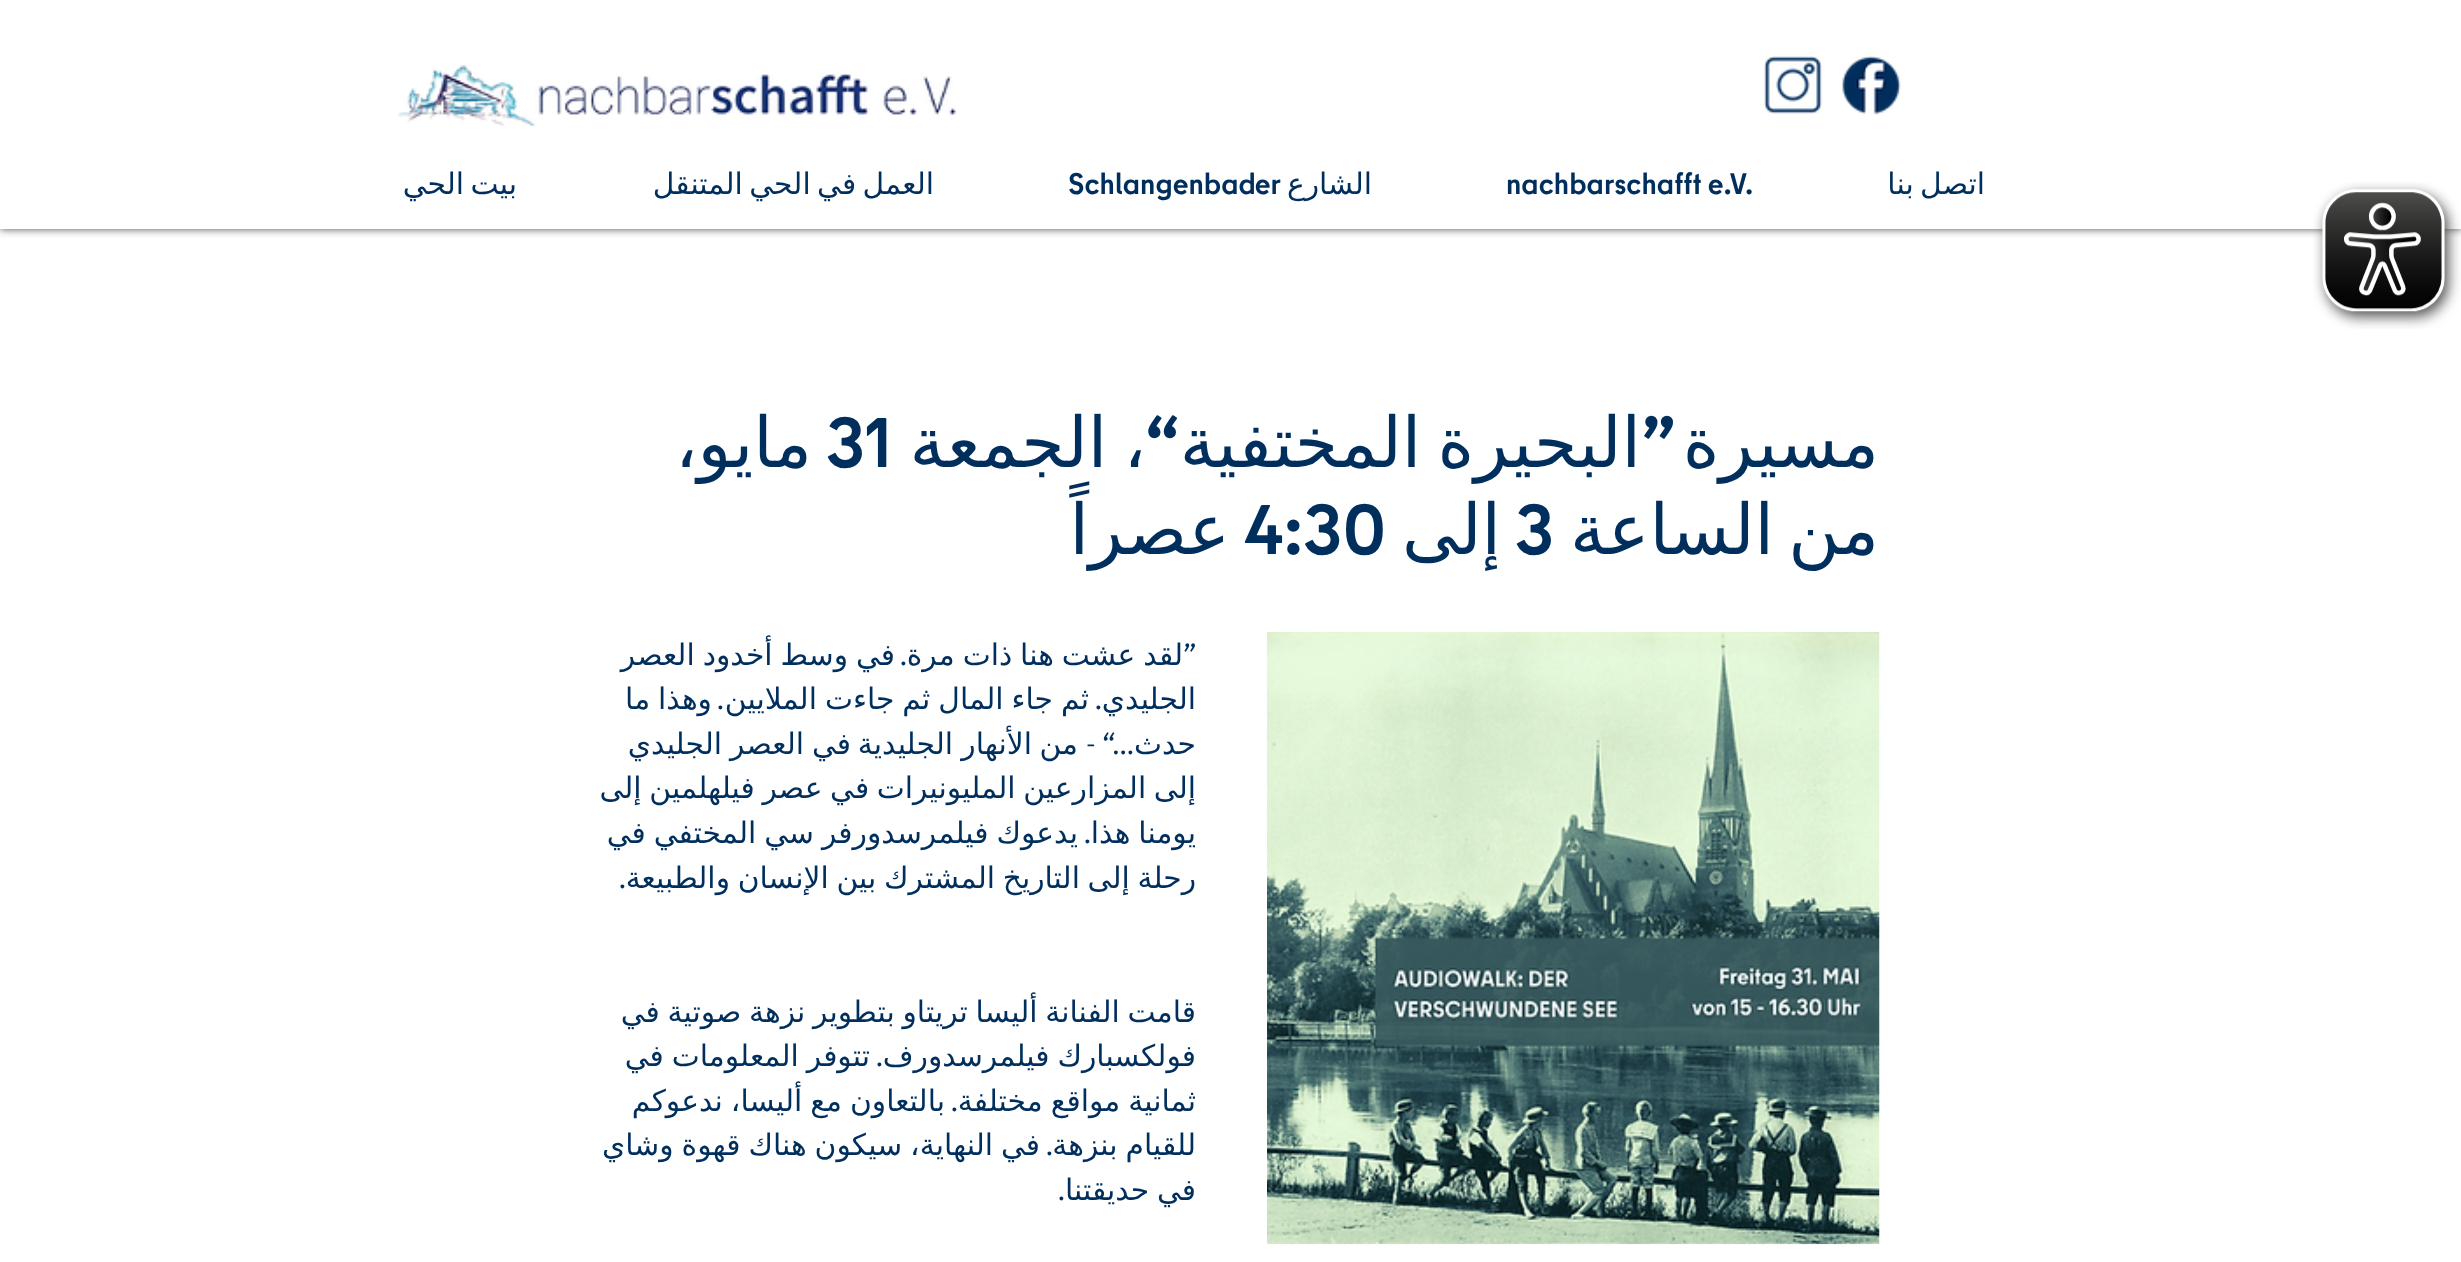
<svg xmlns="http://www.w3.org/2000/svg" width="2461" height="1262">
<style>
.a{font:29.75px DejaVu Sans;direction:rtl;fill:#002e5d}
.b{font:bold 29.75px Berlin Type;fill:#002e5d}
.c{font:70px DejaVu Sans;direction:rtl;fill:#002e5d}
.d{font:bold 70px Berlin Type;direction:rtl;fill:#002e5d}
.e{font:bold 70px Berlin Type;fill:#002e5d}
.f{font:29.75px Berlin Type;direction:rtl;fill:#002e5d}
</style>
<rect width="100%" height="100%" fill="#fff"/>
<path fill="#000000b3" filter="blur(4.5px)" d="M0 0h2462v229H0z"/>
<path fill="#fff" d="M0 0h2461v229H0z"/>
<image href="1.png" x="2313" y="182" width="148" height="147"/>
<image href="2.png" x="1842" y="55" width="59" height="60"/>
<image href="3.png" x="1764" y="56" width="58" height="58"/>
<image href="4.png" x="398" y="65" width="558" height="62"/>
<image href="5.png" x="1267" y="632" width="613" height="613"/>
<text class="a" x="1985" y="194" word-spacing="-3">اتصل بنا</text>
<text class="b" x="1506" y="194">nachbarschafft e.V.</text>
<text class="a" x="1372" y="194">الشارع</text>
<text class="b" x="1068" y="194">Schlangenbader</text>
<text class="a" x="934" y="194" word-spacing="-3">العمل في الحي المتنقل</text>
<text class="a" x="517" y="194" word-spacing="-3">بيت الحي</text>
<text class="c" x="1879" y="467">مسيرة</text>
<text class="d" x="1675" y="467">”</text>
<text class="c" x="1641" y="467" word-spacing="-6">البحيرة المختفية</text>
<text class="d" x="1180" y="467">“</text>
<text class="c" x="1146" y="467" word-spacing="-6">، الجمعة</text>
<text class="e" x="826" y="467">31</text>
<text class="c" x="812" y="467">مايو،</text>
<text class="c" x="1879" y="554" word-spacing="-8">من الساعة</text>
<text class="e" x="1515" y="554">3</text>
<text class="c" x="1501" y="554">إلى</text>
<text class="e" x="1244" y="554">4:30</text>
<text class="c" x="1230" y="554">عصراً</text>
<text class="f" x="1196" y="665">”</text>
<text class="a" x="1183" y="665" word-spacing="-1.5">لقد عشت هنا ذات مرة</text>
<text class="a" x="895" y="665" word-spacing="-1.5">في وسط أخدود العصر</text>
<text class="f" x="907" y="665">.</text>
<text class="a" x="1196" y="709">الجليدي</text>
<text class="f" x="1102" y="709">.</text>
<text class="a" x="1089" y="709" word-spacing="-1.5">ثم جاء المال ثم جاءت الملايين</text>
<text class="f" x="724" y="709">.</text>
<text class="a" x="712" y="709" word-spacing="-1.5">وهذا ما</text>
<text class="a" x="1196" y="754">حدث</text>
<text class="f" x="1134" y="754">...“ -</text>
<text class="a" x="1078" y="754">من</text>
<text class="a" x="1032" y="754">الأنهار</text>
<text class="a" x="953" y="754">الجليدية</text>
<text class="a" x="851" y="754">في</text>
<text class="a" x="804" y="754">العصر</text>
<text class="a" x="722" y="754">الجليدي</text>
<text class="a" x="1196" y="798" word-spacing="-1.75">إلى المزارعين المليونيرات في عصر فيلهلمين إلى</text>
<text class="a" x="1196" y="843" word-spacing="-1.5">يومنا هذا</text>
<text class="f" x="1091" y="843">.</text>
<text class="a" x="1078" y="843" word-spacing="-1.5">يدعوك فيلمرسدورفر سي المختفي في</text>
<text class="a" x="1196" y="888" word-spacing="-1.75">رحلة إلى التاريخ المشترك بين الإنسان والطبيعة</text>
<text class="f" x="626" y="888">.</text>
<text class="a" x="1196" y="1022" word-spacing="-1.75">قامت الفنانة أليسا تريتاو بتطوير نزهة صوتية في</text>
<text class="a" x="1196" y="1066" word-spacing="-1.5">فولكسبارك فيلمرسدورف</text>
<text class="f" x="883" y="1066">.</text>
<text class="a" x="870" y="1066" word-spacing="-1.5">تتوفر المعلومات في</text>
<text class="a" x="1196" y="1111" word-spacing="-1.5">ثمانية مواقع مختلفة</text>
<text class="f" x="958" y="1111">.</text>
<text class="a" x="945" y="1111" word-spacing="-1.5">بالتعاون مع أليسا، ندعوكم</text>
<text class="a" x="1196" y="1155" word-spacing="-1.5">للقيام بنزهة</text>
<text class="f" x="1053" y="1155">.</text>
<text class="a" x="1040" y="1155" word-spacing="-1.5">في النهاية، سيكون هناك قهوة وشاي</text>
<text class="a" x="1196" y="1200" word-spacing="-1.75">في حديقتنا</text>
<text class="f" x="1065" y="1200">.</text>
</svg>
